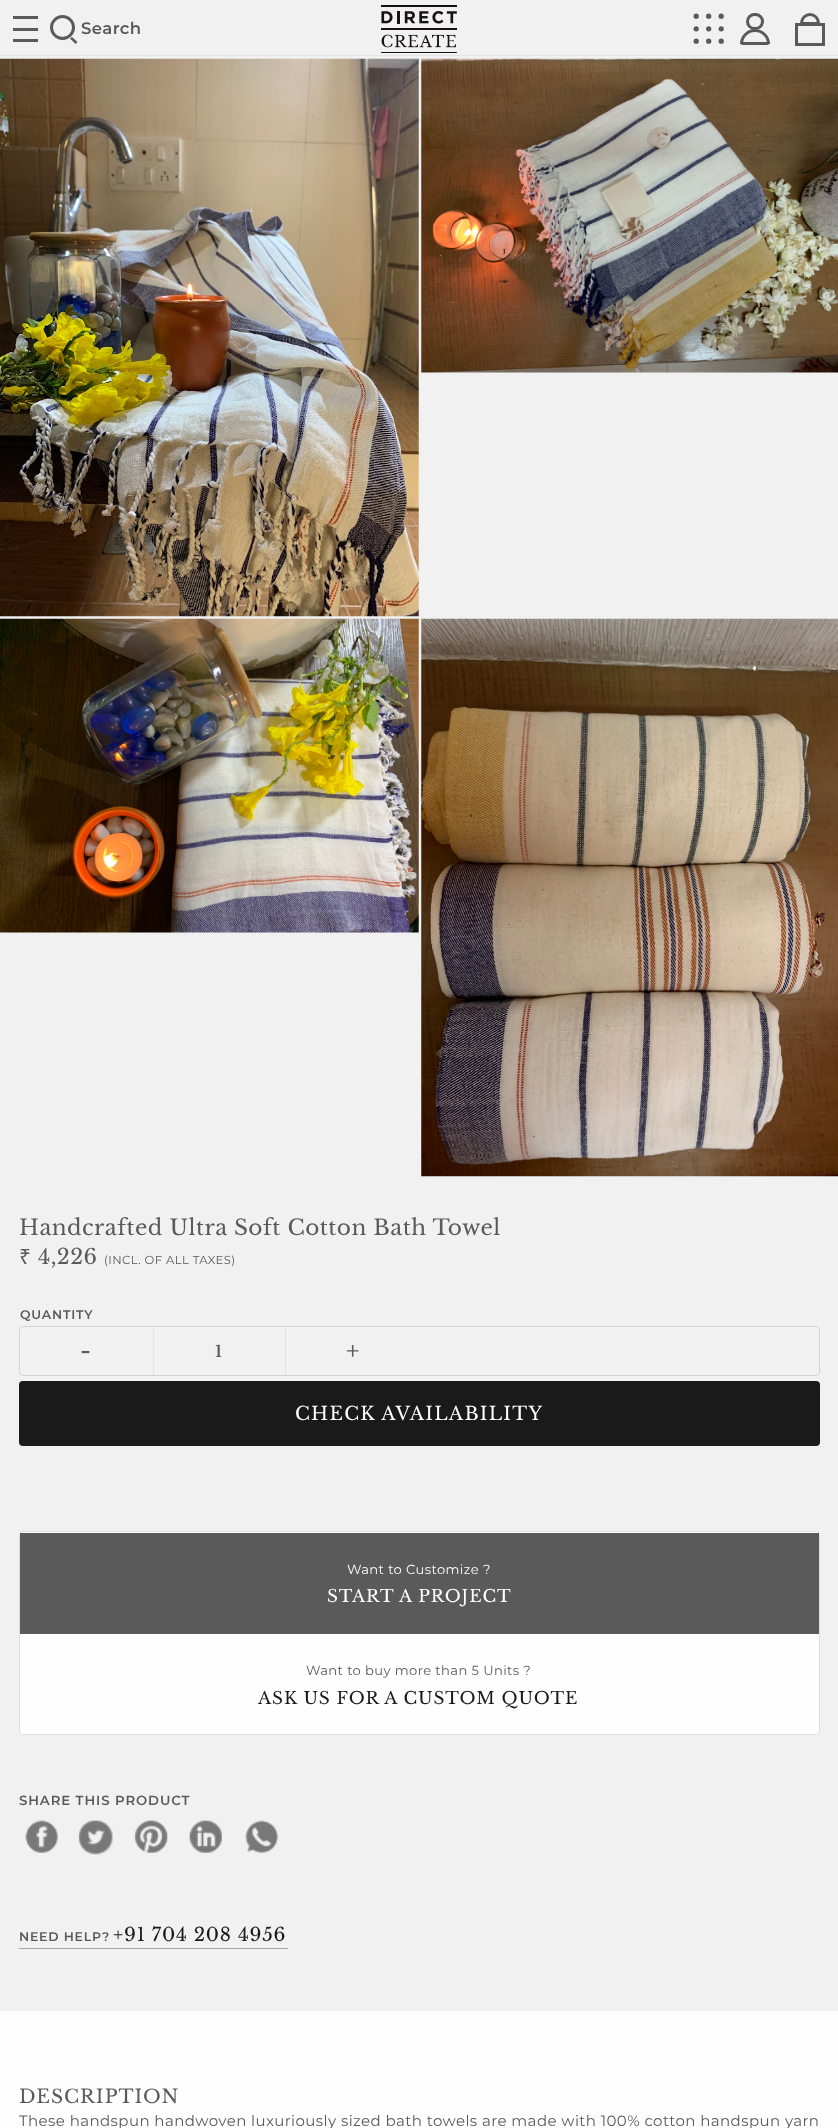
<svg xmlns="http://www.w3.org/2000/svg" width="838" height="2128">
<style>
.a{font:600 16.5px Montserrat;letter-spacing:0.42px;fill:#5a5a5a}
.b{font:21.6px Libre Baskerville;letter-spacing:0.42px;fill:#5a5a5a}
.c{font:21px Noto Sans;letter-spacing:0.42px;fill:#5a5a5a}
.d{font:21px Libre Baskerville;letter-spacing:0.42px;fill:#5a5a5a}
.e{font:11.6px Montserrat;letter-spacing:0.42px;fill:#5a5a5a}
.f{font:600 12.5px Montserrat;letter-spacing:0.8px;fill:#5a5a5a}
.g{font:600 24px Libre Baskerville;fill:#5a5a5a}
.h{font:600 16px Libre Baskerville;letter-spacing:1px;fill:#5a5a5a}
.i{font:18.5px Libre Baskerville;letter-spacing:1.25px;fill:#fefefe}
.j{font:13.1px Montserrat;letter-spacing:0.4px;fill:#fefefe}
.k{font:17px Libre Baskerville;letter-spacing:0.9px;fill:#fefefe}
.l{font:13.1px Montserrat;letter-spacing:0.4px;fill:#5a5a5a}
.m{font:17px Libre Baskerville;letter-spacing:0.9px;fill:#1a1a1a}
.n{font:600 13.25px Montserrat;letter-spacing:0.9px;fill:#5a5a5a}
.o{font:18.5px Libre Baskerville;letter-spacing:0.8px;fill:#1a1a1a}
.p{font:18.75px Libre Baskerville;letter-spacing:1px;fill:#5a5a5a}
.q{font:15px Montserrat;letter-spacing:0.42px;fill:#5a5a5a}
</style>
<rect width="100%" height="100%" fill="#f1f1f1"/>
<path fill="#e6e6e6" d="M0 55h838v1H0z"/>
<path fill="#5a5a5a" d="M13 16h25v3H13z"/>
<path fill="#5a5a5a" d="M13 39h25v3H13z"/>
<path fill="#5a5a5a" d="M13 28h25v3H13z"/>
<circle fill="none" stroke="#5a5a5a" stroke-width="3" cx="62.5" cy="27.5" r="11"/>
<path fill="#5a5a5a" d="M72 37l5.5 5l-2 2l-5.5-5.5z"/>
<image href="1.png" x="381" y="5" width="76" height="48"/>
<path fill="none" stroke="#5a5a5a" stroke-width="5.3" stroke-linecap="round" stroke-dasharray="0 12.5" d="M696.2 16.2h25.3m-25.3 12.6h25.3m-25.3 12.4h25.3"/>
<rect fill="none" stroke="#5a5a5a" stroke-width="3" x="747.5" y="14.5" width="15" height="14" rx="7"/>
<path fill="none" stroke="#5a5a5a" stroke-width="3" d="M755 30.5c7.5 0 13.5 6 13.5 13.5v-.5h-27v.5c0-7.5 6-13.5 13.5-13.5z"/>
<path fill="none" stroke="#5a5a5a" stroke-width="3" d="M810 14.5c4.5 0 8.5 4 8.5 8.5v.5h-17v-.5c0-4.5 4-8.5 8.5-8.5z"/>
<path fill="none" stroke="#5a5a5a" stroke-width="3" d="M796.5 24.5h27v20H796.5z"/>
<image href="2.png" x="0" y="58" width="419" height="559"/>
<image href="3.png" x="421" y="58" width="417" height="315"/>
<image href="4.png" x="0" y="618" width="419" height="315"/>
<image href="5.png" x="421" y="618" width="417" height="559"/>
<rect fill="none" stroke="#d3d3d3" x="19.5" y="1326.5" width="800" height="49" rx="3.5"/>
<path fill="#e2e2e2" d="M153 1328h1v47H153z"/>
<path fill="#e2e2e2" d="M285 1328h1v47H285z"/>
<rect fill="#1a1a1a" x="19" y="1381" width="801" height="65" rx="4"/>
<rect fill="#fefefe" x="19" y="1531" width="801" height="204" rx="4"/>
<rect fill="none" stroke="#5a5a5a33" x="19.5" y="1531.5" width="800" height="203" rx="3.5"/>
<path fill="#5a5a5a" d="M20 1533h799v101H20z"/>
<image href="6.png" x="25" y="1820" width="33" height="33"/>
<image href="7.png" x="78" y="1820" width="35" height="35"/>
<image href="8.png" x="134" y="1820" width="34" height="33"/>
<image href="9.png" x="189" y="1820" width="33" height="33"/>
<image href="10.png" x="245" y="1820" width="33" height="33"/>
<path fill="#a6a6a6" d="M19 1948h269v1H19z"/>
<path fill="#fefefe" d="M0 2011h838v117H0z"/>
<text class="a" x="81" y="34">Search</text>
<text class="b" x="19" y="1235">Handcrafted Ultra Soft Cotton Bath Towel</text>
<text class="c" x="19" y="1264">₹</text>
<text class="d" x="38" y="1264">4,226</text>
<text class="e" x="104" y="1264">(INCL. OF ALL TAXES)</text>
<text class="f" x="20" y="1319">QUANTITY</text>
<text class="g" x="80" y="1359">-</text>
<text class="h" x="215" y="1357">1</text>
<text class="g" x="346" y="1359">+</text>
<text class="i" x="295" y="1420">CHECK AVAILABILITY</text>
<text class="j" x="347" y="1574">Want to Customize ?</text>
<text class="k" x="327" y="1602">START A PROJECT</text>
<text class="l" x="306" y="1675">Want to buy more than 5 Units ?</text>
<text class="m" x="258" y="1704">ASK US FOR A CUSTOM QUOTE</text>
<text class="n" x="19" y="1805">SHARE THIS PRODUCT</text>
<text class="f" x="19" y="1941">NEED HELP?</text>
<text class="o" x="113" y="1941">+91 704 208 4956</text>
<text class="p" x="19" y="2103">DESCRIPTION</text>
<text class="q" x="19" y="2126">These handspun handwoven luxuriously sized bath towels are made with 100% cotton handspun yarn</text>
</svg>
